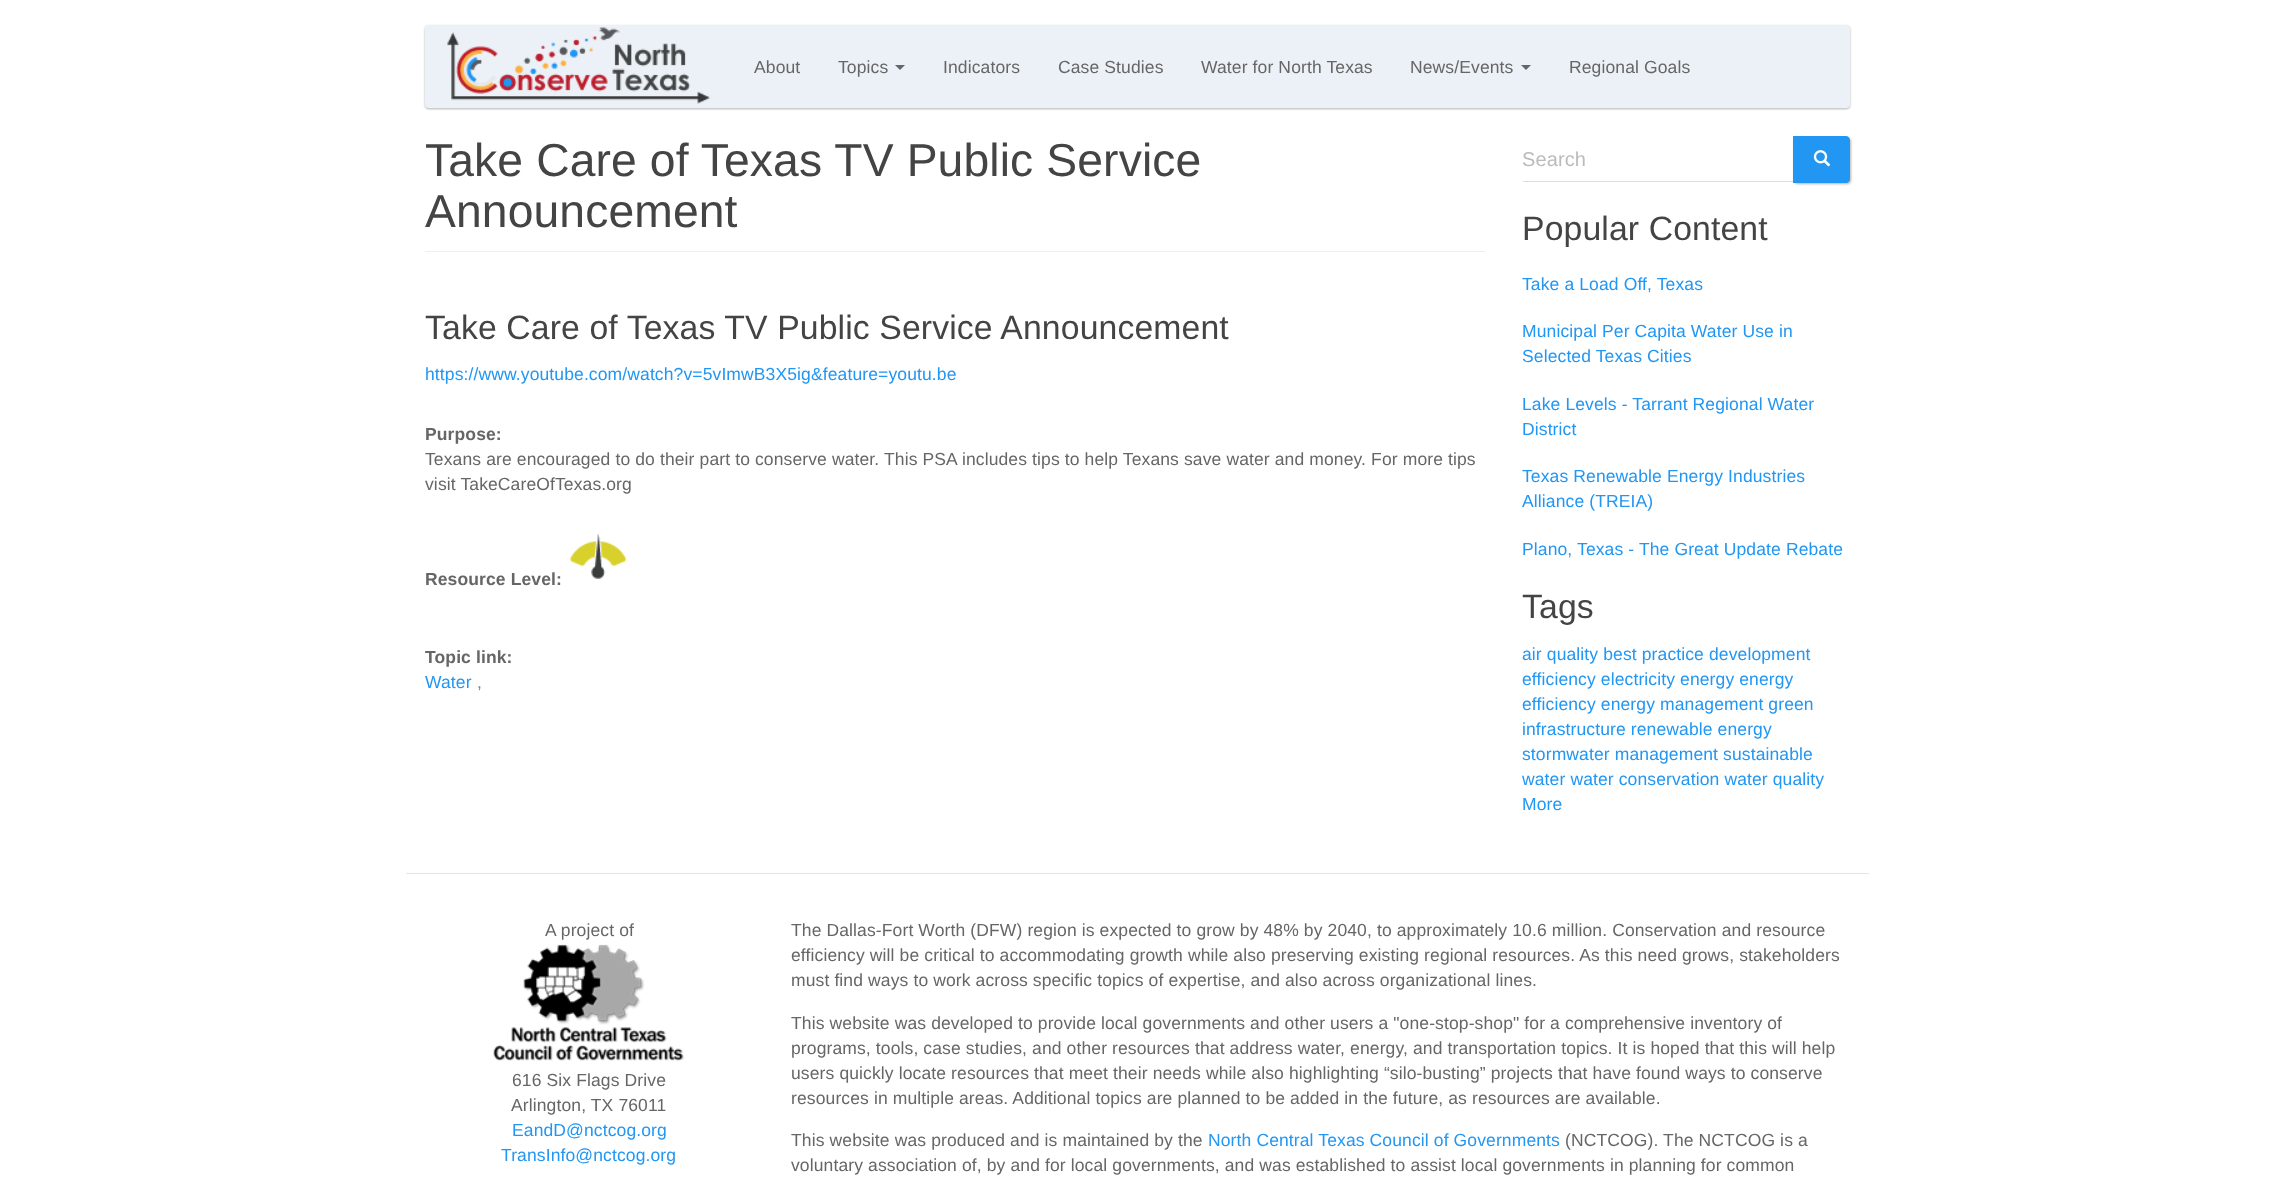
<svg xmlns="http://www.w3.org/2000/svg" width="2274" height="1177">
<style>
.a{font:17.5px Liberation Sans;letter-spacing:0.12px;fill:#666}
.b{font:46.25px Liberation Sans;letter-spacing:0.12px;fill:#444}
.c{font:33.75px Liberation Sans;letter-spacing:0.12px;fill:#444}
.d{font:17.5px Liberation Sans;letter-spacing:0.12px;fill:#2196f3}
.e{font:bold 17.5px Liberation Sans;letter-spacing:0.12px;fill:#666}
.f{font:17.5px Liberation Sans;letter-spacing:0.12px;fill:#808080}
.g{font:20px Liberation Sans;letter-spacing:0.12px;fill:#bbb}
</style>
<rect width="100%" height="100%" fill="#fff"/>
<rect fill="#0000004d" filter="blur(1px)" x="425" y="26" width="1425" height="83" rx="4"/>
<rect fill="#ebf1f6" x="425" y="25" width="1425" height="83" rx="4"/>
<image href="1.png" x="447" y="27" width="263" height="77"/>
<path fill="#666" d="M895 65h10l-5 5z"/>
<path fill="#666" d="M1521 65h10l-5 5z"/>
<path fill="#eee" d="M425 251h1060v1H425z"/>
<image href="2.png" x="569" y="533" width="58" height="46"/>
<path fill="#ddd" d="M1523 181h271v1H1523z"/>
<rect fill="#0000004d" filter="blur(1px)" x="1794" y="138" width="57" height="46" rx="4"/>
<path fill="#2196f3" d="M1793 136h53c2 0 4 2 4 4v39c0 2-2 4-4 4h-53z"/>
<image href="3.png" x="1813" y="150" width="18" height="17"/>
<path fill="#e5e5e5" d="M406 873h1463v1H406z"/>
<image href="4.png" x="493" y="944" width="192" height="117"/>
<text class="a" x="754" y="73">About</text>
<text class="a" x="838" y="73">Topics</text>
<text class="a" x="943" y="73">Indicators</text>
<text class="a" x="1058" y="73">Case Studies</text>
<text class="a" x="1201" y="73">Water for North Texas</text>
<text class="a" x="1410" y="73">News/Events</text>
<text class="a" x="1569" y="73">Regional Goals</text>
<text class="b" x="425" y="176">Take Care of Texas TV Public Service</text>
<text class="b" x="425" y="227">Announcement</text>
<text class="c" x="425" y="339">Take Care of Texas TV Public Service Announcement</text>
<text class="d" x="425" y="380">https://www.youtube.com/watch?v=5vImwB3X5ig&amp;feature=youtu.be</text>
<text class="e" x="425" y="440">Purpose:</text>
<text class="a" x="425" y="465">Texans are encouraged to do their part to conserve water. This PSA includes tips to help Texans save water and money. For more tips</text>
<text class="a" x="425" y="490">visit TakeCareOfTexas.org</text>
<text class="e" x="425" y="585">Resource Level:</text>
<text class="e" x="425" y="663">Topic link:</text>
<text class="d" x="425" y="688">Water</text>
<text class="f" x="477" y="688">,</text>
<text class="g" x="1522" y="166">Search</text>
<text class="c" x="1522" y="240">Popular Content</text>
<text class="d" x="1522" y="290">Take a Load Off, Texas</text>
<text class="d" x="1522" y="337">Municipal Per Capita Water Use in</text>
<text class="d" x="1522" y="362">Selected Texas Cities</text>
<text class="d" x="1522" y="410">Lake Levels - Tarrant Regional Water</text>
<text class="d" x="1522" y="435">District</text>
<text class="d" x="1522" y="482">Texas Renewable Energy Industries</text>
<text class="d" x="1522" y="507">Alliance (TREIA)</text>
<text class="d" x="1522" y="555">Plano, Texas - The Great Update Rebate</text>
<text class="c" x="1522" y="618">Tags</text>
<text class="d" x="1522" y="660">air quality best practice development</text>
<text class="d" x="1522" y="685">efficiency electricity energy energy</text>
<text class="d" x="1522" y="710">efficiency energy management green</text>
<text class="d" x="1522" y="735">infrastructure renewable energy</text>
<text class="d" x="1522" y="760">stormwater management sustainable</text>
<text class="d" x="1522" y="785">water water conservation water quality</text>
<text class="d" x="1522" y="810">More</text>
<text class="a" x="545" y="936">A project of</text>
<text class="a" x="512" y="1086">616 Six Flags Drive</text>
<text class="a" x="511" y="1111">Arlington, TX 76011</text>
<text class="d" x="512" y="1136">EandD@nctcog.org</text>
<text class="d" x="501" y="1161">TransInfo@nctcog.org</text>
<text class="a" x="791" y="936">The Dallas-Fort Worth (DFW) region is expected to grow by 48% by 2040, to approximately 10.6 million. Conservation and resource</text>
<text class="a" x="791" y="961">efficiency will be critical to accommodating growth while also preserving existing regional resources. As this need grows, stakeholders</text>
<text class="a" x="791" y="986">must find ways to work across specific topics of expertise, and also across organizational lines.</text>
<text class="a" x="791" y="1029">This website was developed to provide local governments and other users a "one-stop-shop" for a comprehensive inventory of</text>
<text class="a" x="791" y="1054">programs, tools, case studies, and other resources that address water, energy, and transportation topics. It is hoped that this will help</text>
<text class="a" x="791" y="1079">users quickly locate resources that meet their needs while also highlighting “silo-busting” projects that have found ways to conserve</text>
<text class="a" x="791" y="1104">resources in multiple areas. Additional topics are planned to be added in the future, as resources are available.</text>
<text class="a" x="791" y="1146">This website was produced and is maintained by the</text>
<text class="d" x="1208" y="1146">North Central Texas Council of Governments</text>
<text class="a" x="1565" y="1146">(NCTCOG). The NCTCOG is a</text>
<text class="a" x="791" y="1171">voluntary association of, by and for local governments, and was established to assist local governments in planning for common</text>
</svg>
